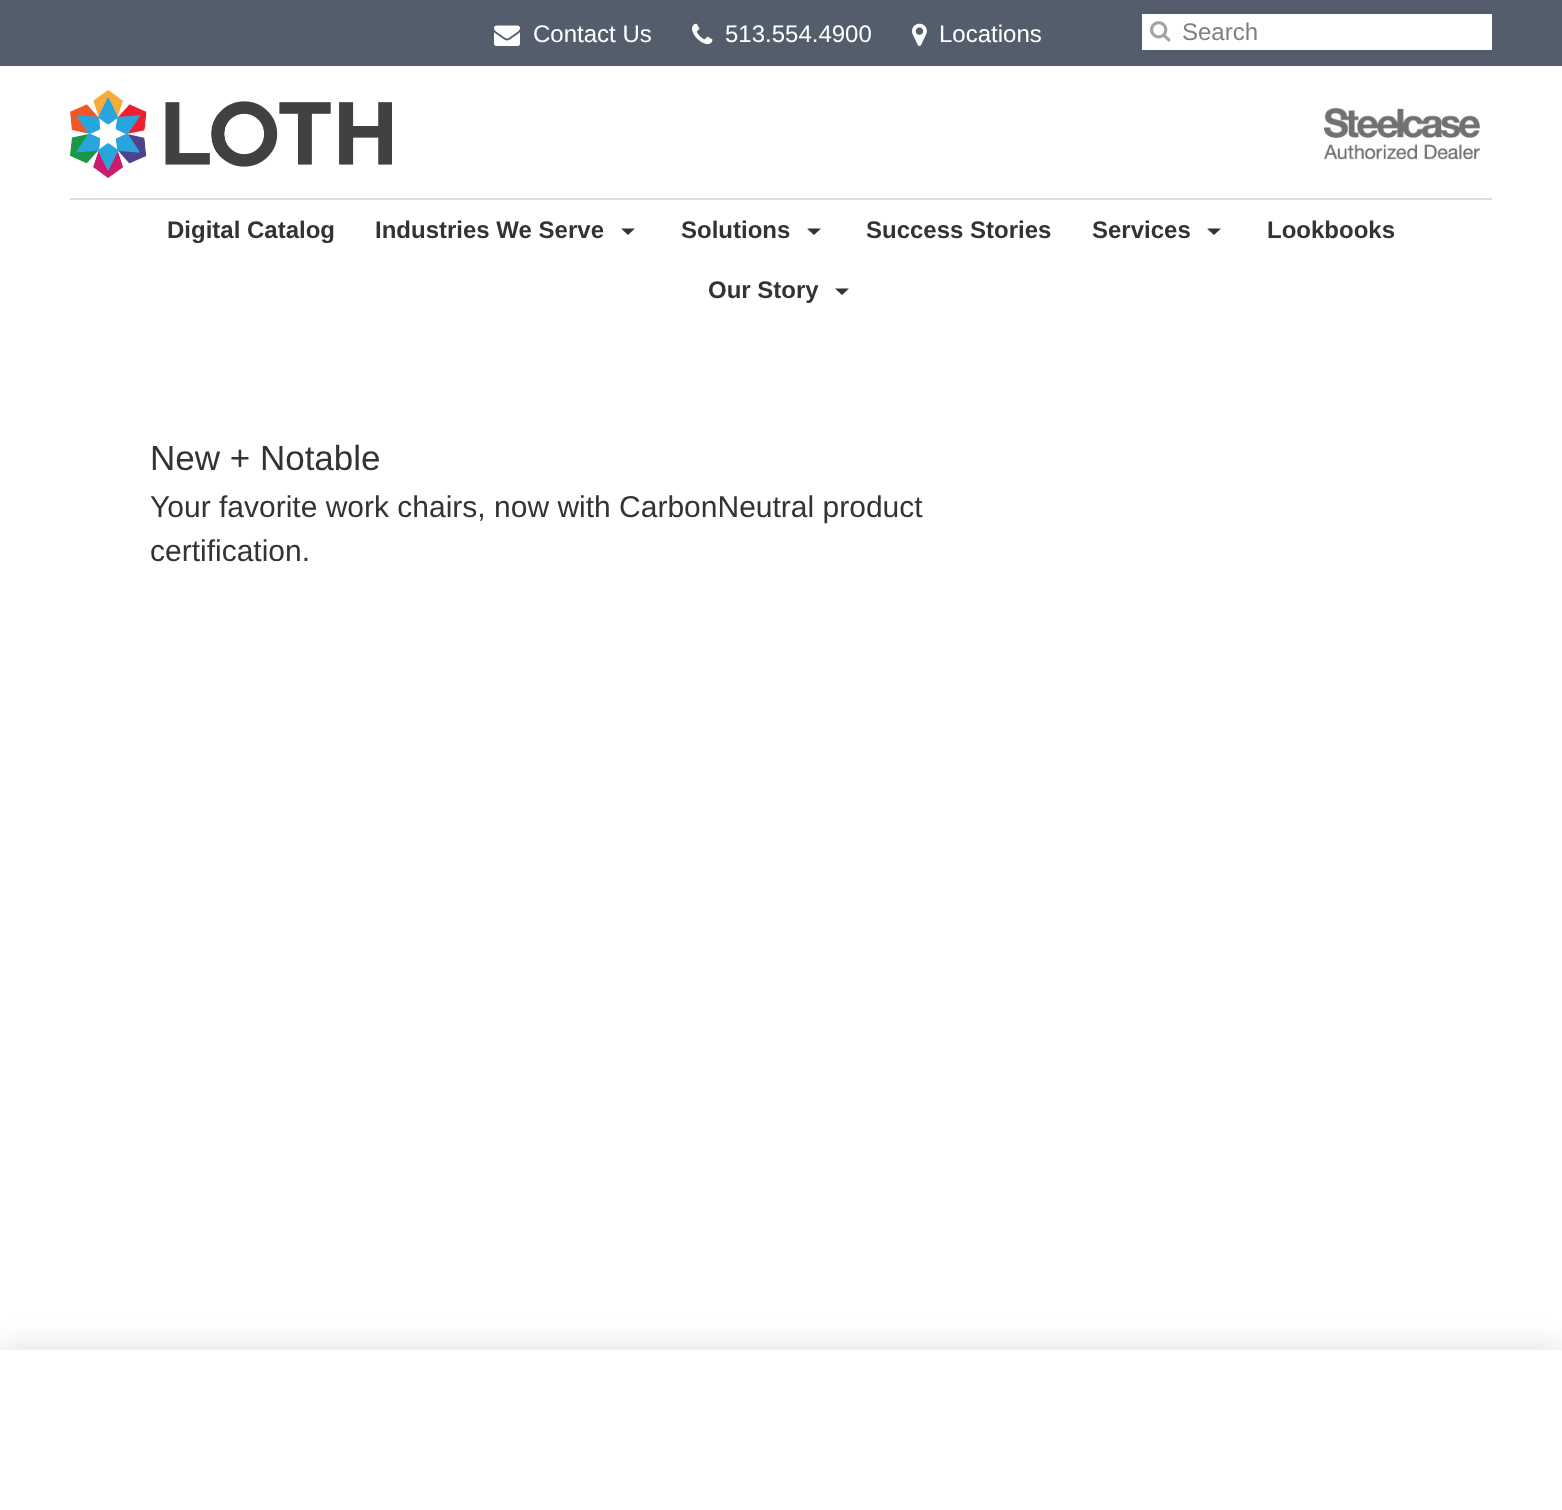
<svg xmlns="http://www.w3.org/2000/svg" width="1562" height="1510">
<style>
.a{font:24px Liberation Sans;fill:#fff}
.b{font:24px Liberation Sans;fill:#7f8180}
.c{font:bold 24px Liberation Sans;fill:#333}
.d{font:35px Liberation Sans;fill:#333}
.e{font:30px Liberation Sans;fill:#333}
</style>
<rect width="100%" height="100%" fill="#fff"/>
<path fill="#545d6b" d="M0 0h1562v66H0z"/>
<image href="1.png" x="494" y="25" width="26" height="21"/>
<image href="2.png" x="692" y="23" width="21" height="22"/>
<image href="3.png" x="912" y="23" width="15" height="23"/>
<path fill="#fff" d="M1142 14h350v36H1142z"/>
<image href="4.png" x="1150" y="21" width="21" height="21"/>
<image href="5.png" x="70" y="90" width="322" height="88"/>
<image href="6.png" x="1324" y="108" width="156" height="52"/>
<path fill="#ddd" d="M70 198h1422v2H70z"/>
<path fill="#333" d="M621 228.5l7 6.5l7-6.5z"/>
<path fill="#333" d="M807 228.5l7 6.5l7-6.5z"/>
<path fill="#333" d="M1207 228.5l7 6.5l7-6.5z"/>
<path fill="#333" d="M835 288.5l7 6.5l7-6.5z"/>
<path fill="#00000021" filter="blur(15px)" d="M0 1348h1562v160H0z"/>
<path fill="#fff" d="M0 1350h1562v160H0z"/>
<text class="a" x="533" y="42">Contact Us</text>
<text class="a" x="725" y="42">513.554.4900</text>
<text class="a" x="939" y="42">Locations</text>
<text class="b" x="1182" y="40">Search</text>
<text class="c" x="167" y="238">Digital Catalog</text>
<text class="c" x="375" y="238">Industries We Serve</text>
<text class="c" x="681" y="238">Solutions</text>
<text class="c" x="866" y="238">Success Stories</text>
<text class="c" x="1092" y="238">Services</text>
<text class="c" x="1267" y="238">Lookbooks</text>
<text class="c" x="708" y="298">Our Story</text>
<text class="d" x="150" y="470">New + Notable</text>
<text class="e" x="150" y="517">Your favorite work chairs, now with CarbonNeutral product</text>
<text class="e" x="150" y="561">certification.</text>
</svg>
